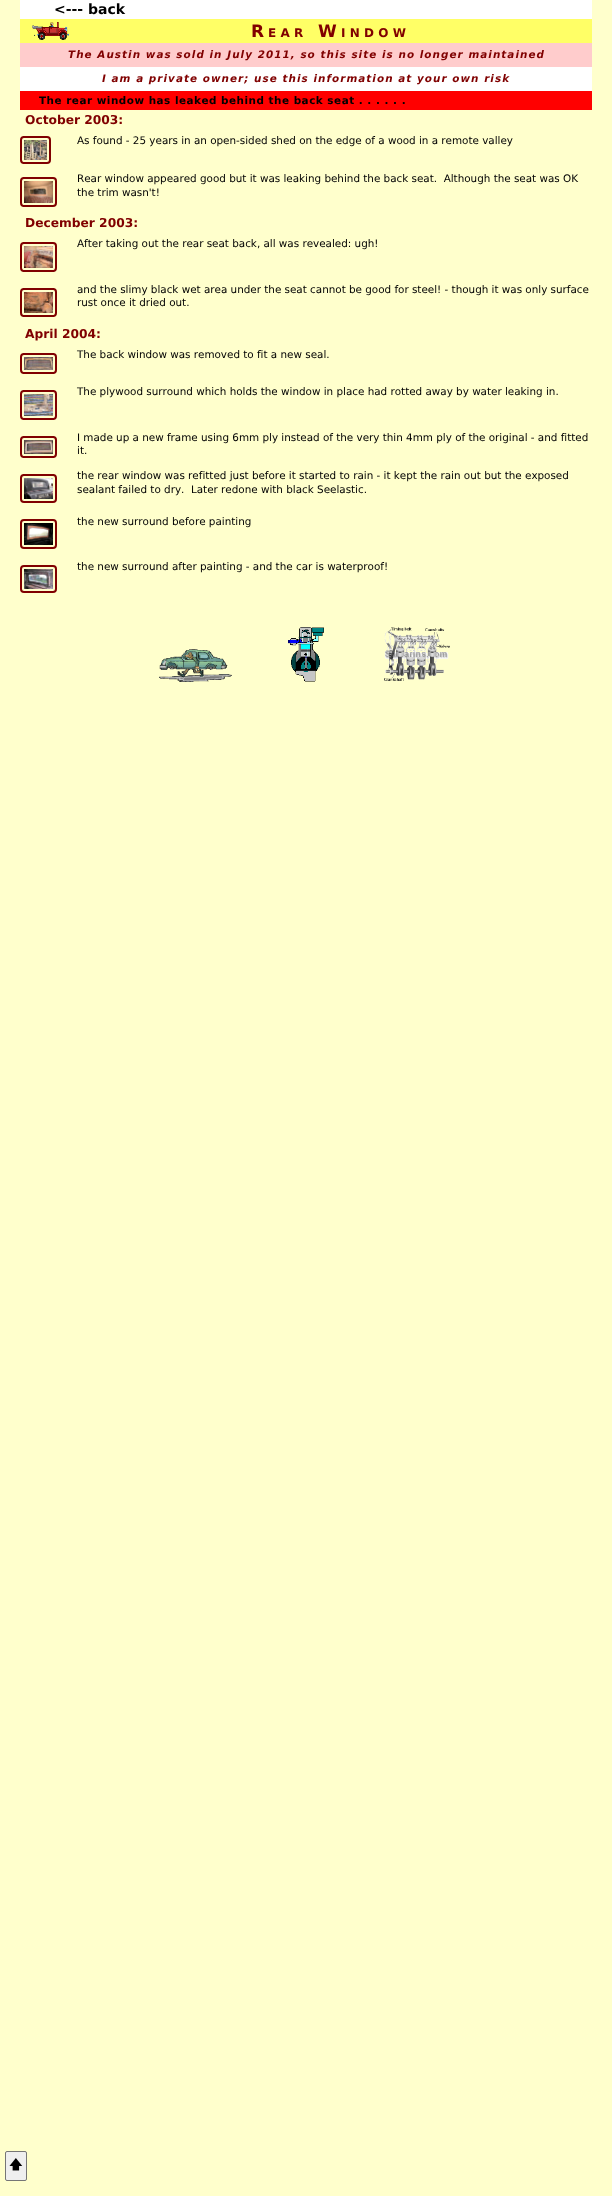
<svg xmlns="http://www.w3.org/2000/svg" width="612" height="2196">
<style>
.a{font:bold 14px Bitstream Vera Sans;fill:#000}
.b{font:bold 17px Bitstream Vera Sans;letter-spacing:4.25px;fill:#800000}
.c{font:bold 12px Bitstream Vera Sans;letter-spacing:4.25px;fill:#800000}
.d{font:italic bold 10.4px Bitstream Vera Sans;letter-spacing:1.05px;fill:#800000}
.e{font:bold 10.4px Bitstream Vera Sans;letter-spacing:0.52px;fill:#000}
.f{font:bold 12.25px Bitstream Vera Sans;fill:#800000}
.g{font:10.4px Bitstream Vera Sans;fill:#000}
.h{font:bold 13px 'Noto Sans Symbols 2';fill:#000}
</style>
<rect width="100%" height="100%" fill="#ffc"/>
<path fill="#fff" d="M20 0h572v19H20z"/>
<path fill="#ff6" d="M20 19h572v24H20z"/>
<image href="1.png" x="32" y="22" width="37" height="18"/>
<path fill="#fcc" d="M20 43h572v24H20z"/>
<path fill="#fff" d="M20 67h572v24H20z"/>
<path fill="#f00" d="M20 91h572v19H20z"/>
<rect fill="none" stroke="#800000" stroke-width="2" x="21" y="137" width="29" height="26" rx="3"/>
<image href="2.png" x="24" y="140" width="23" height="20"/>
<rect fill="none" stroke="#800000" stroke-width="2" x="21" y="178" width="35" height="28" rx="3"/>
<image href="3.png" x="24" y="181" width="29" height="22"/>
<rect fill="none" stroke="#800000" stroke-width="2" x="21" y="243" width="35" height="28" rx="3"/>
<image href="4.png" x="24" y="246" width="29" height="22"/>
<rect fill="none" stroke="#800000" stroke-width="2" x="21" y="289" width="35" height="27" rx="3"/>
<image href="5.png" x="24" y="292" width="29" height="21"/>
<rect fill="none" stroke="#800000" stroke-width="2" x="21" y="354" width="35" height="19" rx="3"/>
<image href="6.png" x="24" y="357" width="29" height="13"/>
<rect fill="none" stroke="#800000" stroke-width="2" x="21" y="391" width="35" height="28" rx="3"/>
<image href="7.png" x="24" y="394" width="29" height="22"/>
<rect fill="none" stroke="#800000" stroke-width="2" x="21" y="437" width="35" height="20" rx="3"/>
<image href="8.png" x="24" y="440" width="29" height="14"/>
<rect fill="none" stroke="#800000" stroke-width="2" x="21" y="475" width="35" height="27" rx="3"/>
<image href="9.png" x="24" y="478" width="29" height="21"/>
<rect fill="none" stroke="#800000" stroke-width="2" x="21" y="520" width="35" height="28" rx="3"/>
<image href="10.png" x="24" y="523" width="29" height="22"/>
<rect fill="none" stroke="#800000" stroke-width="2" x="21" y="566" width="35" height="26" rx="3"/>
<image href="11.png" x="24" y="569" width="29" height="20"/>
<image href="12.png" x="159" y="649" width="73" height="33"/>
<image href="13.png" x="288" y="627" width="36" height="55"/>
<image href="14.png" x="384" y="627" width="66" height="54"/>
<rect fill="#efefef" stroke="#767676" x="5.5" y="2151.5" width="21" height="29" rx="1.5"/>
<text class="a" x="54" y="14">&lt;--- back</text>
<text class="b" x="251" y="37">R</text>
<text class="c" x="268" y="37">EAR</text>
<text class="b" x="318" y="37">W</text>
<text class="c" x="341" y="37">INDOW</text>
<text class="d" x="68" y="58">The Austin was sold in July 2011, so this site is no longer maintained</text>
<text class="d" x="102" y="82">I am a private owner; use this information at your own risk</text>
<text class="e" x="39" y="104">The rear window has leaked behind the back seat . . . . . .</text>
<text class="f" x="25" y="124">October 2003:</text>
<text class="g" x="77" y="144">As found - 25 years in an open-sided shed on the edge of a wood in a remote valley</text>
<text class="g" xml:space="preserve" x="77" y="182">Rear window appeared good but it was leaking behind the back seat.  Although the seat was OK</text>
<text class="g" x="77" y="196">the trim wasn't!</text>
<text class="f" x="25" y="227">December 2003:</text>
<text class="g" x="77" y="247">After taking out the rear seat back, all was revealed: ugh!</text>
<text class="g" x="77" y="293">and the slimy black wet area under the seat cannot be good for steel! - though it was only surface</text>
<text class="g" x="77" y="306">rust once it dried out.</text>
<text class="f" x="25" y="338">April 2004:</text>
<text class="g" x="77" y="358">The back window was removed to fit a new seal.</text>
<text class="g" x="77" y="395">The plywood surround which holds the window in place had rotted away by water leaking in.</text>
<text class="g" x="77" y="441">I made up a new frame using 6mm ply instead of the very thin 4mm ply of the original - and fitted</text>
<text class="g" x="77" y="454">it.</text>
<text class="g" x="77" y="479">the rear window was refitted just before it started to rain - it kept the rain out but the exposed</text>
<text class="g" xml:space="preserve" x="77" y="493">sealant failed to dry.  Later redone with black Seelastic.</text>
<text class="g" x="77" y="525">the new surround before painting</text>
<text class="g" x="77" y="570">the new surround after painting - and the car is waterproof!</text>
<text class="h" x="9" y="2169">🡅</text>
</svg>
